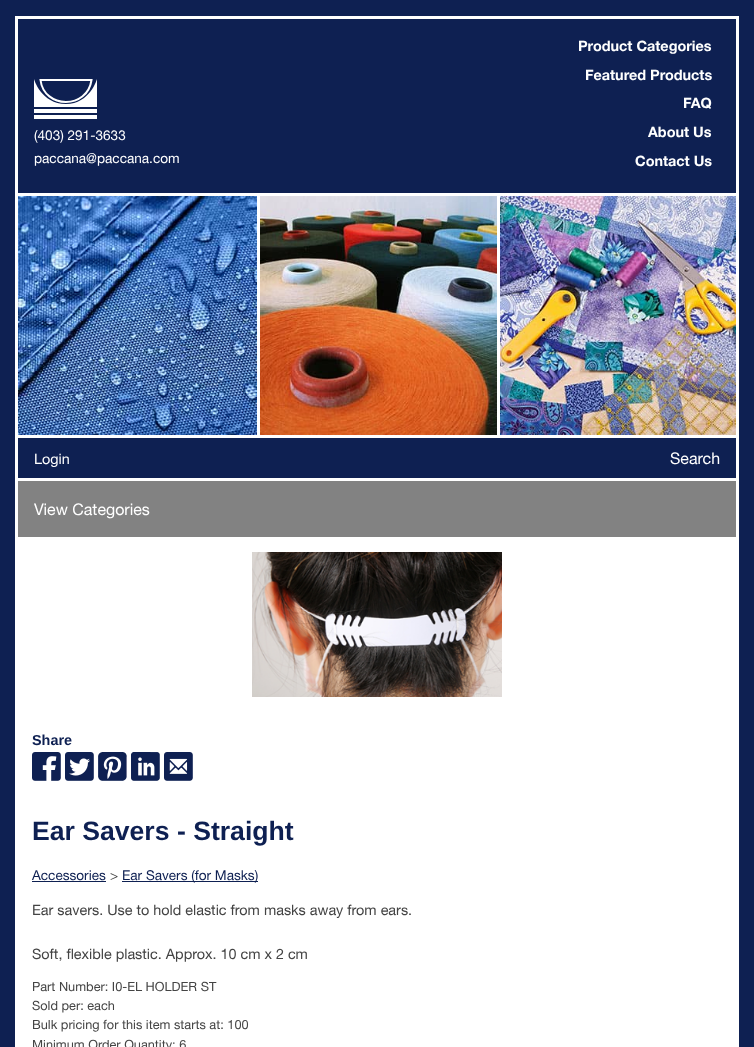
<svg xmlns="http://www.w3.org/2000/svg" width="754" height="1047">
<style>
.a{font:13.6px 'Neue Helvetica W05';fill:#fff}
.b{font:bold 14.4px 'Neue Helvetica W05';fill:#fff}
.c{font:14.4px 'Neue Helvetica W05';fill:#fff}
.d{font:16px 'Neue Helvetica W05';fill:#fff}
.e{font:bold 14.4px Liberation Sans;fill:#0e2052}
.f{font:bold 26.6px Liberation Sans;fill:#0e2052}
.g{font:13.6px 'Neue Helvetica W05';fill:#0e2052}
.h{font:13.6px 'Neue Helvetica W05';fill:#444}
.i{font:14.4px 'Neue Helvetica W05';fill:#444}
.j{font:12.75px 'Neue Helvetica W05';fill:#444}
</style>
<rect width="100%" height="100%" fill="#0e2052"/>
<path fill="none" stroke="#fff" stroke-width="3" d="M16.5 17.5h721v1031H16.5z"/>
<path fill="#fff" d="M18 478h718v3H18z"/>
<path fill="#fff" d="M97 107h-63v-28c0 0 7 25 32 25c24 0 31-25 31-25zm-63 2h63v4h-63zm0 6h63v4h-63z"/>
<path fill="none" stroke="#fff" stroke-width="2" d="M91.5 80c-4 29.5-47.5 29-51 0z"/>
<path fill="#fff" d="M18 193h718v3H18z"/>
<image href="1.png" x="18" y="196" width="239" height="239"/>
<path fill="#fff" d="M257 196h3v239H257z"/>
<image href="2.png" x="260" y="196" width="237" height="239"/>
<path fill="#fff" d="M497 196h3v239H497z"/>
<image href="3.png" x="500" y="196" width="236" height="239"/>
<path fill="#fff" d="M18 435h718v3H18z"/>
<path fill="#828282" d="M18 481h718v56H18z"/>
<path fill="#fff" d="M18 537h718v510H18z"/>
<image href="4.png" x="252" y="552" width="250" height="145"/>
<image href="5.png" x="32" y="752" width="29" height="29"/>
<image href="6.png" x="65" y="752" width="29" height="29"/>
<image href="7.png" x="98" y="752" width="29" height="29"/>
<image href="8.png" x="131" y="752" width="29" height="29"/>
<image href="9.png" x="164" y="752" width="29" height="29"/>
<path fill="#0e2052" d="M32 881h74v1H32z"/>
<path fill="#0e2052" d="M122 881h136v1H122z"/>
<text class="a" x="34" y="140">(403) 291-3633</text>
<text class="a" x="34" y="163">paccana@paccana.com</text>
<text class="b" x="578" y="51">Product Categories</text>
<text class="b" x="585" y="80">Featured Products</text>
<text class="b" x="683" y="108">FAQ</text>
<text class="b" x="648" y="137">About Us</text>
<text class="b" x="635" y="166">Contact Us</text>
<text class="c" x="34" y="464">Login</text>
<text class="d" x="670" y="464">Search</text>
<text class="d" x="34" y="515">View Categories</text>
<text class="e" x="32" y="745">Share</text>
<text class="f" x="32" y="840">Ear Savers - Straight</text>
<text class="g" x="32" y="880">Accessories</text>
<text class="h" x="110" y="880">&gt;</text>
<text class="g" x="122" y="880">Ear Savers (for Masks)</text>
<text class="i" x="32" y="915">Ear savers. Use to hold elastic from masks away from ears.</text>
<text class="i" x="32" y="959">Soft, flexible plastic. Approx. 10 cm x 2 cm</text>
<text class="j" x="32" y="991">Part Number: I0-EL HOLDER ST</text>
<text class="j" x="32" y="1010">Sold per: each</text>
<text class="j" x="32" y="1029">Bulk pricing for this item starts at: 100</text>
<text class="j" x="32" y="1049">Minimum Order Quantity: 6</text>
</svg>
